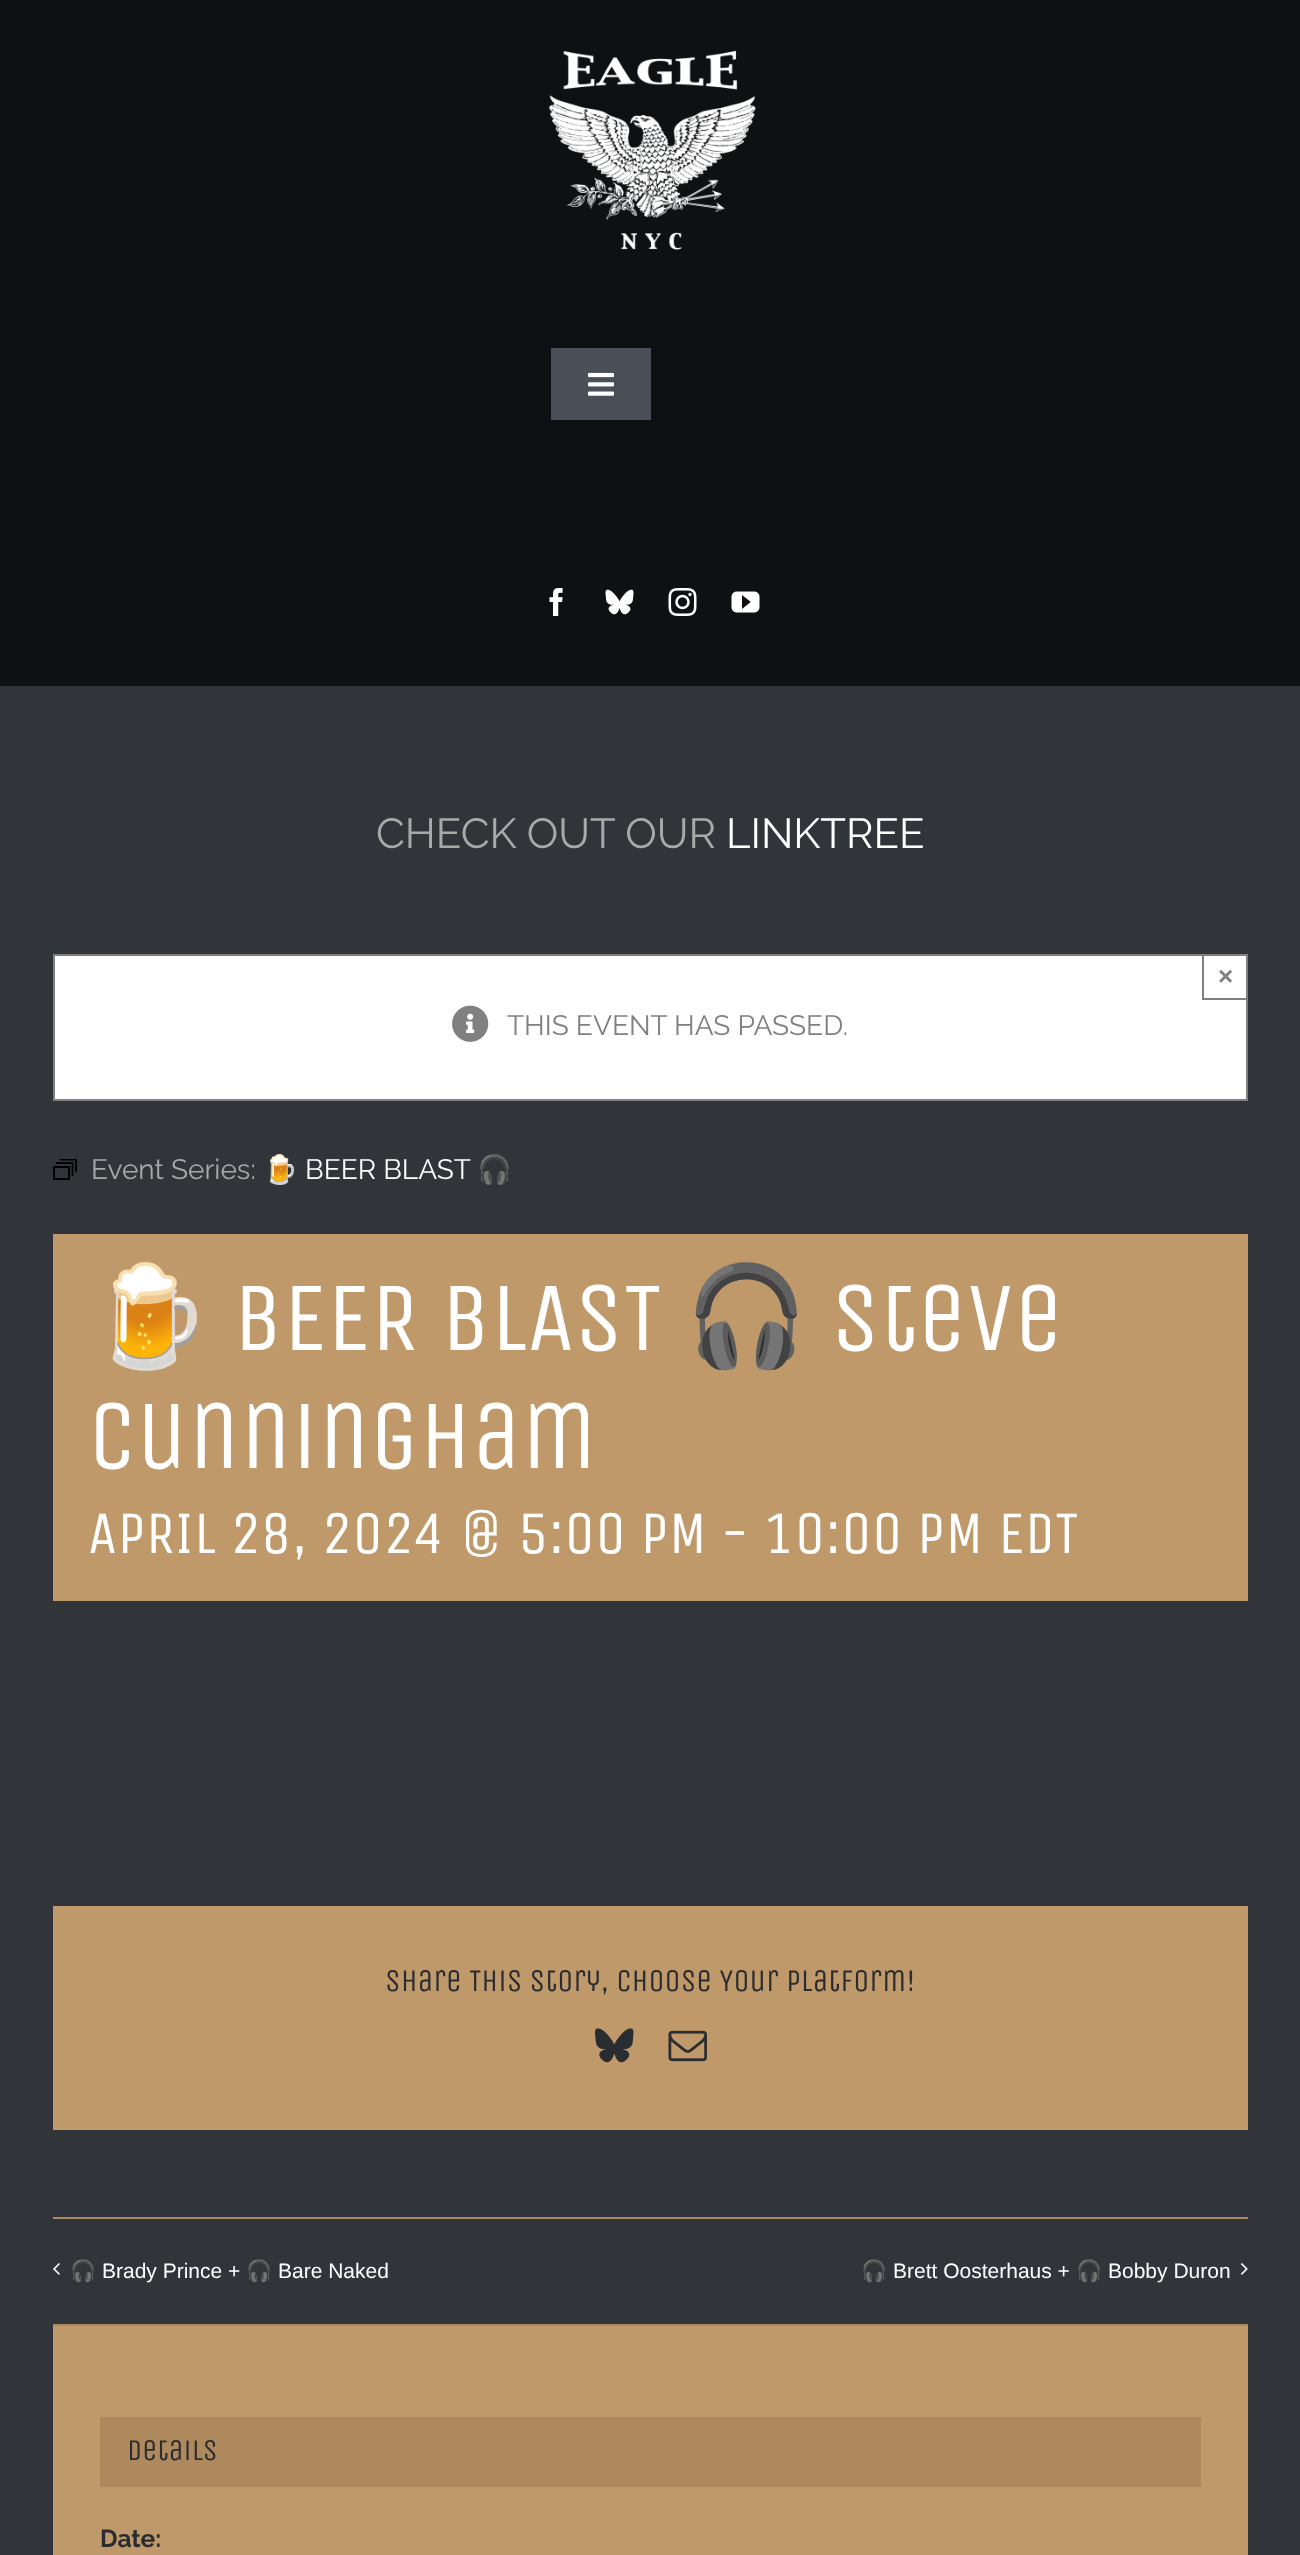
<svg xmlns="http://www.w3.org/2000/svg" width="1300" height="2555">
<style>
.a{font:42px Raleway;fill:#aaa9a9}
.b{font:42px Raleway;fill:#fff}
.c{font:bold 26px Liberation Sans;fill:#808080}
.d{font:28px Raleway;fill:#808080}
.e{font:28px Raleway;fill:#aaa9a9}
.f{font:28px Noto Color Emoji;fill:#fff}
.g{font:28px Raleway;fill:#fff}
.h{font:98.5px Noto Color Emoji;fill:#fff}
.i{font:98.5px Unica One;fill:#fff}
.j{font:60.5px Unica One;fill:#fff}
.k{font:31.5px Unica One;fill:#292c30}
.l{font:21px Noto Color Emoji;fill:#fff}
.m{font:21px Liberation Sans;fill:#fff}
.n{font:30px Unica One;fill:#292c30}
.o{font:bold 24.5px Raleway;fill:#292c30}
</style>
<defs>
<clipPath id="clip1"><path d="M53 1159h24v21H53z"/></clipPath>
</defs>
<rect width="100%" height="100%" fill="#313539"/>
<path fill="#0e1012" d="M0 0h1300v686H0z"/>
<image href="1.png" x="548" y="50" width="208" height="200"/>
<path fill="#4a4e57" d="M551 348h100v72H551z"/>
<image href="2.png" x="588" y="372" width="27" height="24"/>
<image href="3.png" x="549" y="588" width="14" height="28"/>
<image href="4.png" x="605" y="589" width="29" height="26"/>
<image href="5.png" x="668" y="588" width="29" height="28"/>
<image href="6.png" x="731" y="591" width="29" height="22"/>
<path fill="#fff" stroke="#808080" stroke-width="2" d="M54 955h1193v145H54z"/>
<path fill="#808080" d="M1202 998h46v2H1202z"/>
<path fill="#808080" d="M1202 954h2v45H1202z"/>
<image href="7.png" x="452" y="1005" width="37" height="37"/>
<path fill="none" stroke="#000" stroke-width="2" d="M54 1167h15v12H54z"/>
<path fill="none" stroke="#000" stroke-width="1.8" d="M56 1163h16.5v13"/>
<g clip-path="url(#clip1)">
<path fill="none" stroke="#000" stroke-width="1.8" d="M59.5 1159.5h16.5v13"/>
</g>
<path fill="#c0996b" d="M53 1234h1195v367H53z"/>
<path fill="#c0996b" d="M53 1906h1195v224H53z"/>
<image href="8.png" x="595" y="2028" width="39" height="35"/>
<image href="9.png" x="668" y="2030" width="39" height="32"/>
<path fill="#ab8b65" d="M53 2217h1195v2H53z"/>
<path fill="#ab8b65" d="M53 2324h1195v2H53z"/>
<image href="10.png" x="53" y="2263" width="7" height="12"/>
<image href="11.png" x="1240" y="2263" width="8" height="12"/>
<path fill="#c0996b" d="M53 2326h1195v229H53z"/>
<path fill="#ae895d" d="M100 2417h1101v70H100z"/>
<text class="a" x="376" y="848">CHECK OUT OUR</text>
<text class="b" x="726" y="848">LINKTREE</text>
<text class="c" x="1218" y="985">×</text>
<text class="d" x="507" y="1035">THIS EVENT HAS PASSED.</text>
<text class="e" x="91" y="1179">Event Series:</text>
<text class="f" x="263" y="1179">🍺</text>
<text class="g" x="305" y="1179">BEER BLAST</text>
<text class="f" x="477" y="1179">🎧</text>
<text class="h" x="88" y="1350">🍺</text>
<text class="i" x="233" y="1350">BEER BLAST</text>
<text class="h" x="685" y="1350">🎧</text>
<text class="i" x="831" y="1350">Steve</text>
<text class="i" x="88" y="1468">Cunningham</text>
<text class="j" x="88" y="1553">APRIL 28, 2024 @ 5:00 PM</text>
<text class="j" x="720" y="1553">- 10:00 PM EDT</text>
<text class="k" x="385" y="1991">Share This Story, Choose Your Platform!</text>
<text class="l" x="70" y="2278">🎧</text>
<text class="m" x="102" y="2278">Brady Prince +</text>
<text class="l" x="246" y="2278">🎧</text>
<text class="m" x="278" y="2278">Bare Naked</text>
<text class="l" x="861" y="2278">🎧</text>
<text class="m" x="893" y="2278">Brett Oosterhaus +</text>
<text class="l" x="1076" y="2278">🎧</text>
<text class="m" x="1108" y="2278">Bobby Duron</text>
<text class="n" x="127" y="2460">Details</text>
<text class="o" x="100" y="2547">Date:</text>
</svg>
